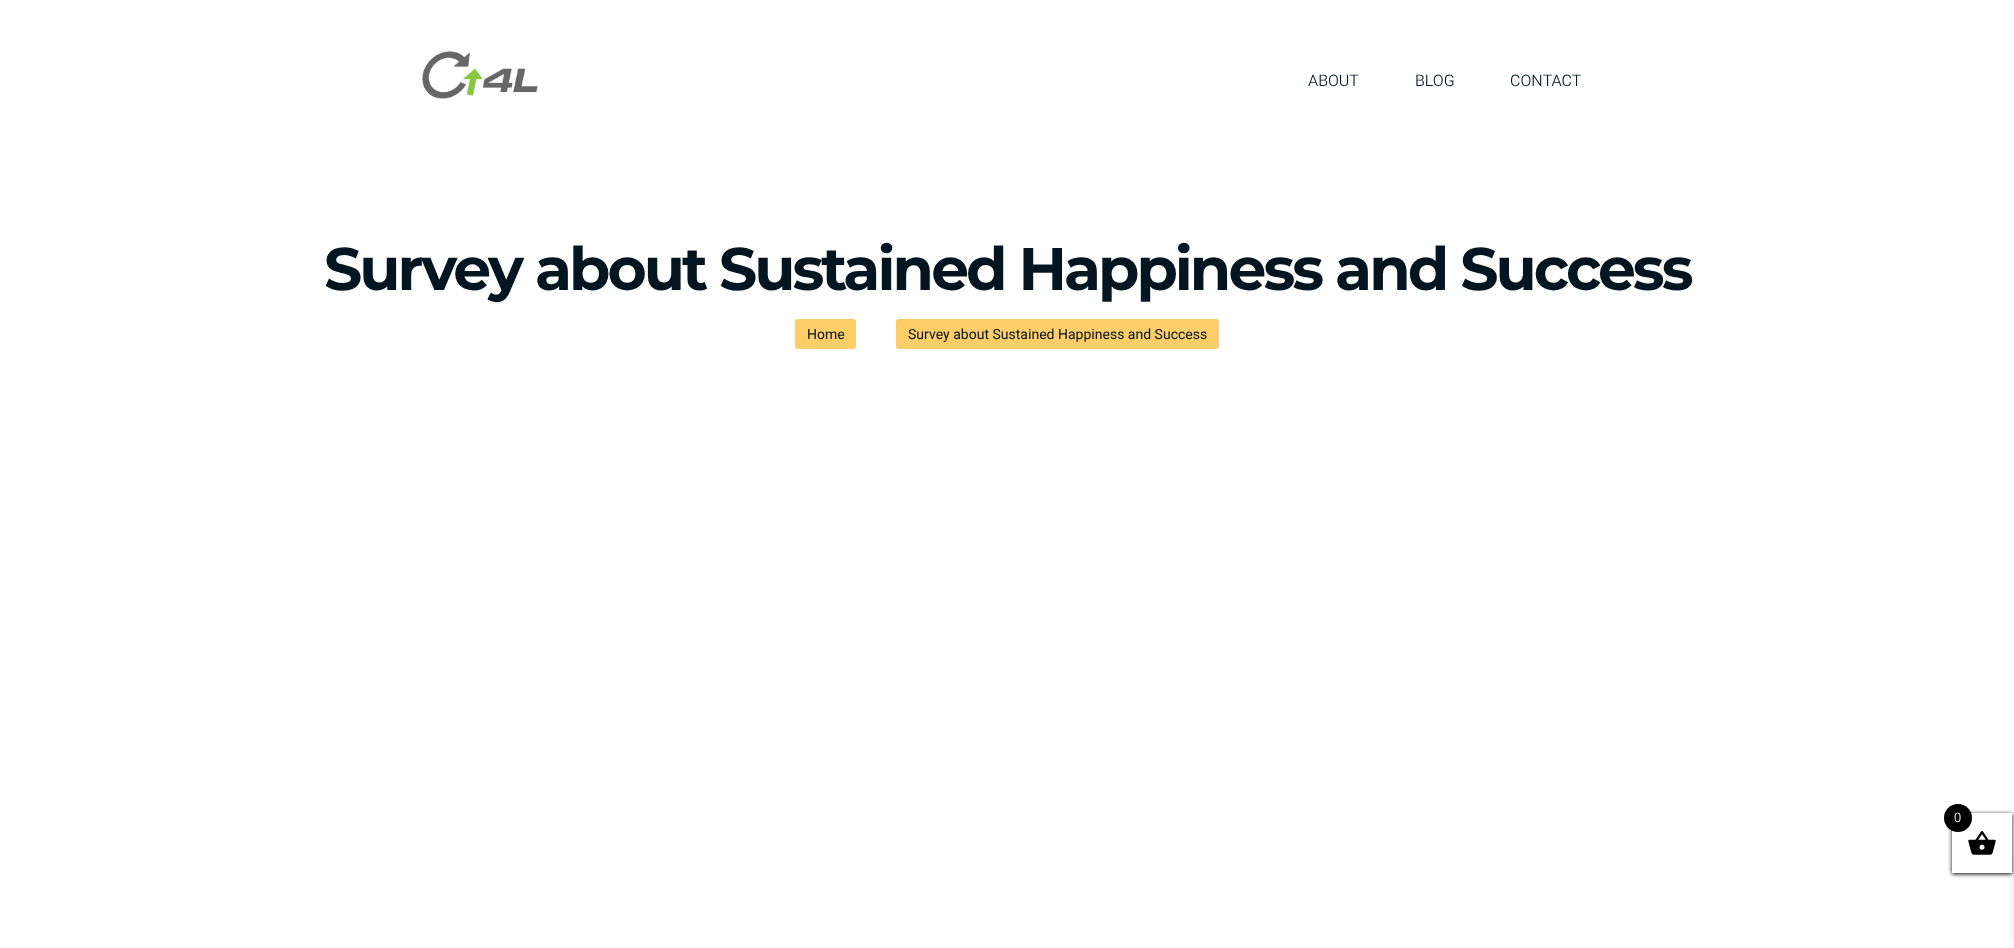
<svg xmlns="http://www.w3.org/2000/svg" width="2014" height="948">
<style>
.a{font:300 16px Heebo;fill:#031521}
.b{font:bold 60px Montserrat;letter-spacing:-3px;fill:#031521}
.c{font:14px Heebo;fill:#031521}
.d{font:300 13px Heebo;fill:#fff}
</style>
<rect width="100%" height="100%" fill="#fff"/>
<image href="1.png" x="422" y="51" width="116" height="48"/>
<rect fill="#fdcd67" x="795" y="319" width="61" height="30" rx="3"/>
<rect fill="#fdcd67" x="896" y="319" width="323" height="30" rx="3"/>
<path fill="#000" filter="blur(2px)" d="M1952 814h60v60H1952z"/>
<path fill="#0000001a" filter="blur(5px)" d="M2014 859h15v88H2014z"/>
<path fill="#fff" d="M1952 813h60v60H1952z"/>
<image href="2.png" x="1968" y="831" width="28" height="24"/>
<circle fill="#000" cx="1958" cy="818" r="14"/>
<text class="a" x="1308" y="86">ABOUT</text>
<text class="a" x="1415" y="86">BLOG</text>
<text class="a" x="1510" y="86">CONTACT</text>
<text class="b" x="324" y="290">Survey about Sustained Happiness and Success</text>
<text class="c" x="807" y="339">Home</text>
<text class="c" x="908" y="339">Survey about Sustained Happiness and Success</text>
<text class="d" x="1954" y="822">0</text>
</svg>
